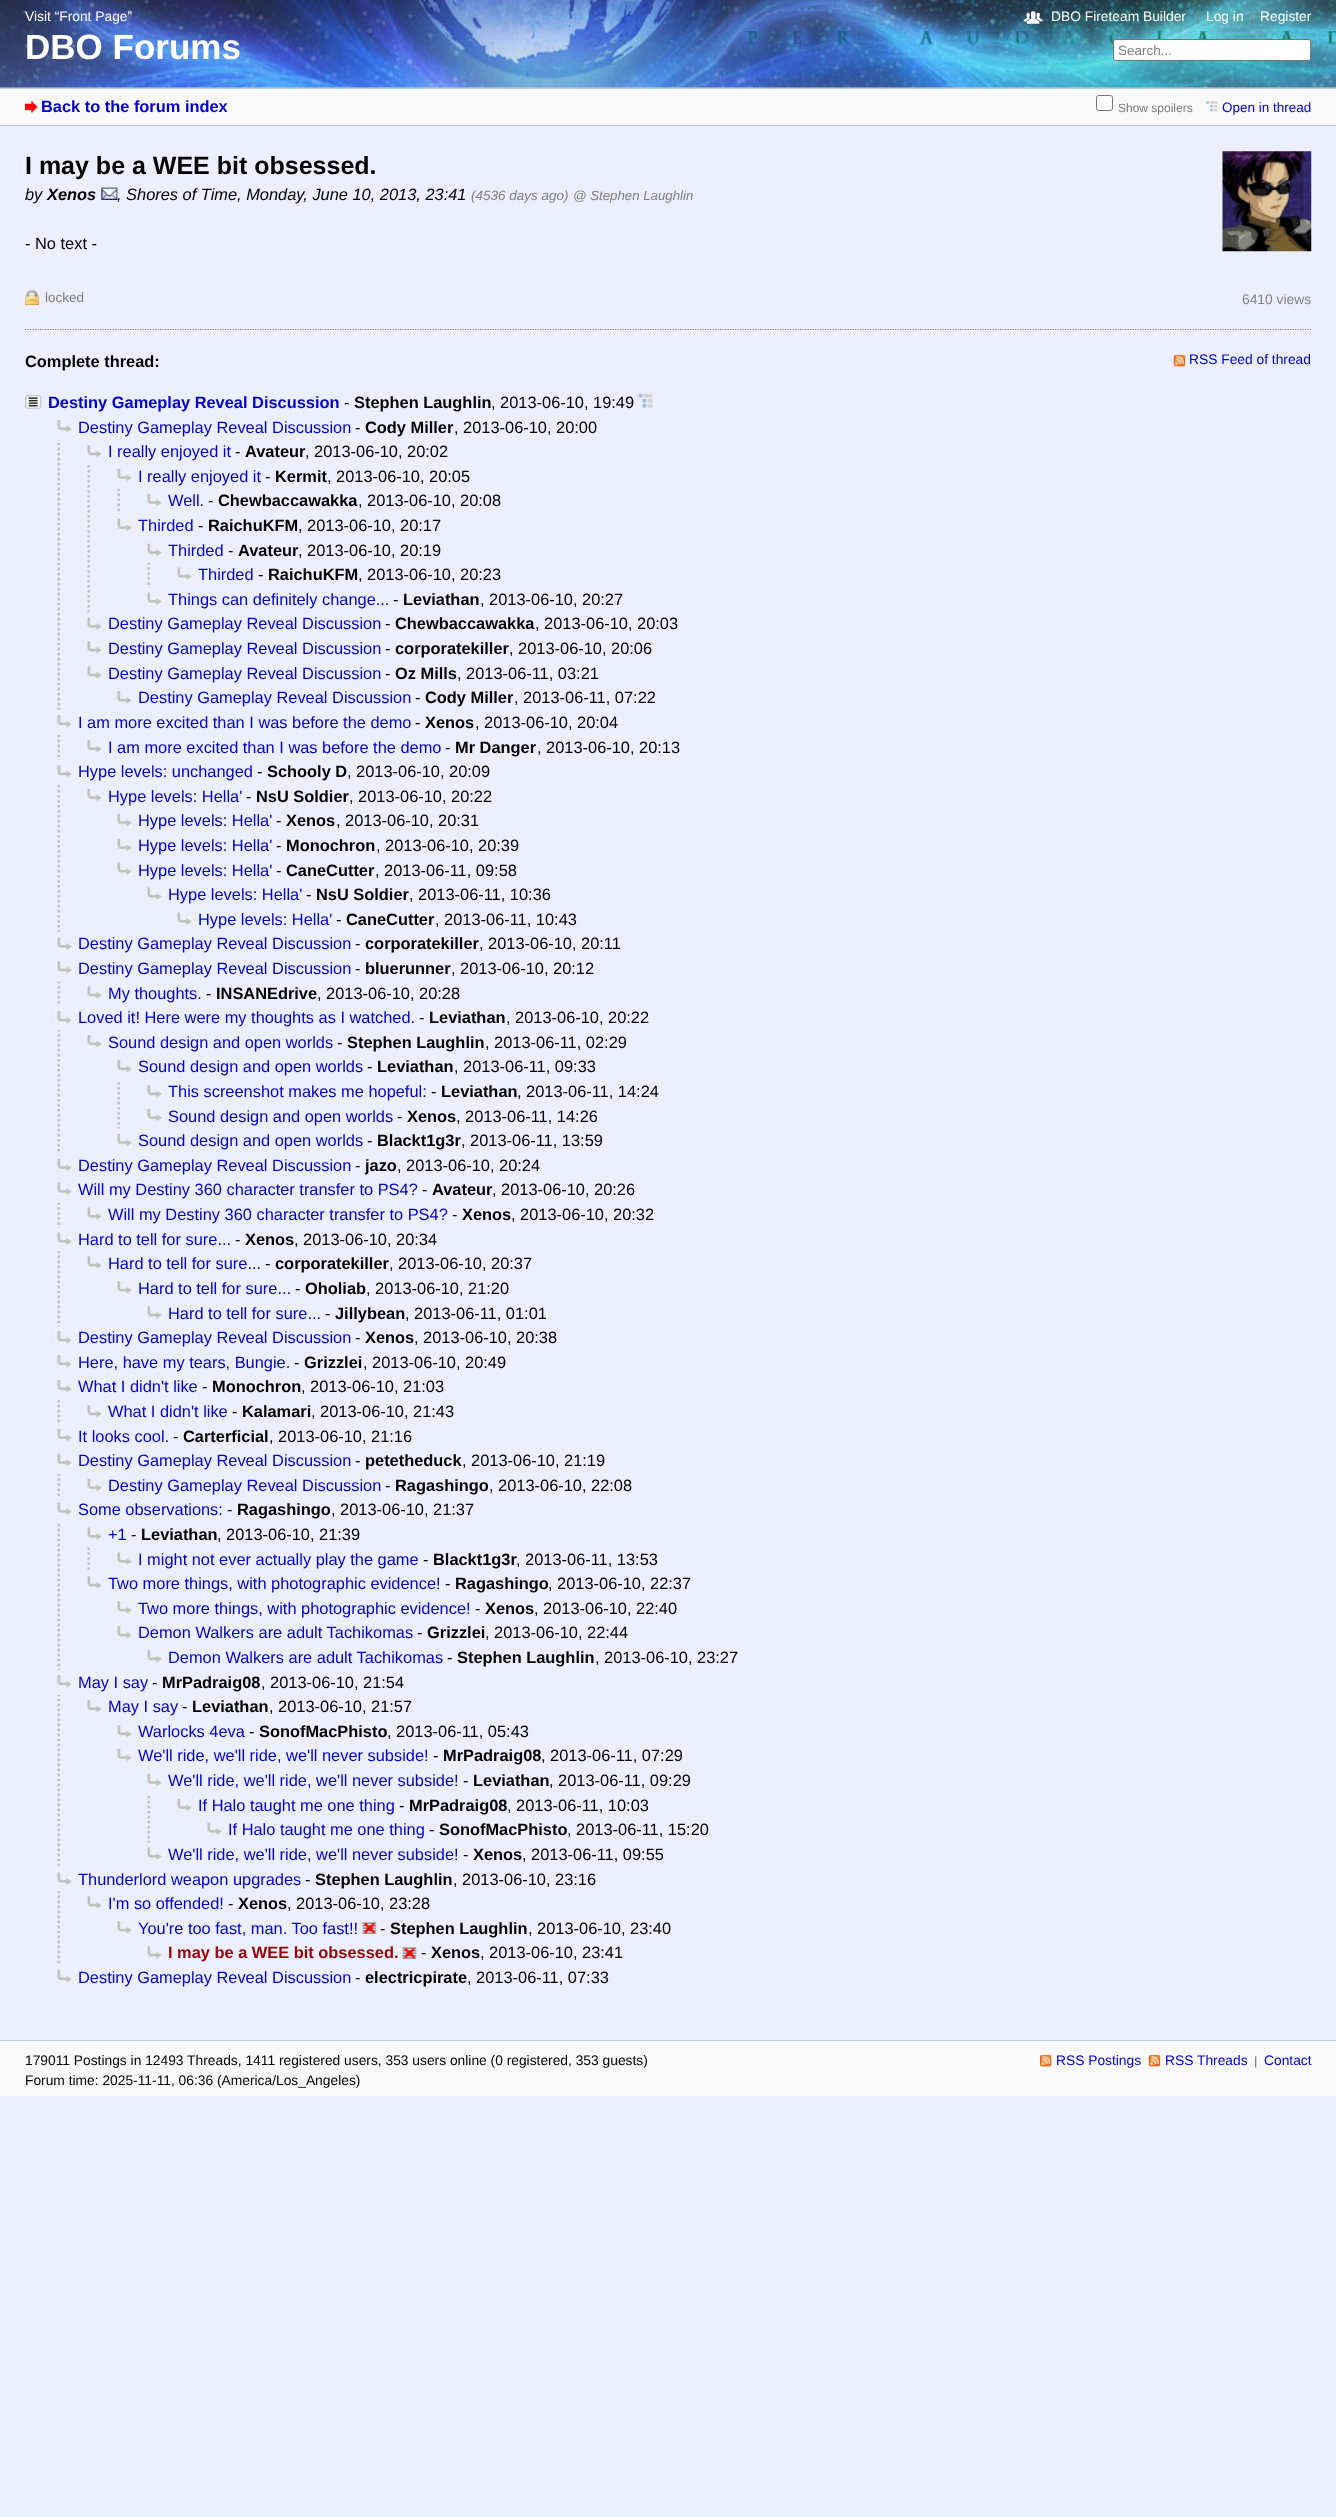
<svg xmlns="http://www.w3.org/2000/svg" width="1336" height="2517">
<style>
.a{font:13.8px Liberation Sans;fill:#fff}
.b{font:bold 35px Liberation Sans;fill:#fff}
.c{font:13.5px Liberation Sans;fill:#808080}
.d{font:bold 16.4px Liberation Sans;fill:#00c}
.e{font:12px Liberation Sans;fill:#787878}
.f{font:13.5px Liberation Sans;fill:#00c}
.g{font:bold 25px Liberation Sans;fill:#000}
.h{font:italic 16.4px Liberation Sans;fill:#000}
.i{font:italic bold 16.4px Liberation Sans;fill:#000}
.j{font:italic 13.5px Liberation Sans;fill:#808080}
.k{font:italic 13.25px Liberation Sans;fill:#808080}
.l{font:16.4px Liberation Sans;fill:#000}
.m{font:13.8px Liberation Sans;fill:#808080}
.n{font:bold 16.4px Liberation Sans;fill:#000}
.o{font:13.8px Liberation Sans;fill:#00c}
.p{font:16.4px Liberation Sans;fill:#00c}
.q{font:bold 16.4px Liberation Sans;fill:#900}
.r{font:13.8px Liberation Sans;fill:#000}
</style>
<rect width="100%" height="100%" fill="#ebefff"/>
<path fill="#cfd5ed" d="M0 87h1336v1H0z"/>
<image href="1.png" x="0" y="0" width="1336" height="88"/>
<image href="2.png" x="1023" y="11" width="20" height="13"/>
<image href="3.png" x="1197" y="12" width="2" height="12"/>
<image href="4.png" x="1251" y="12" width="2" height="12"/>
<rect fill="#fff" stroke="#767676" x="1113.5" y="39.5" width="197" height="21" rx="2"/>
<path fill="#f9f9f9" d="M0 89h1336v36H0z"/>
<path fill="#bacbdf" d="M0 88h1336v1H0z"/>
<path fill="#bacbdf" d="M0 125h1336v1H0z"/>
<image href="5.png" x="25" y="101" width="13" height="12"/>
<rect fill="#fff" stroke="#767676" x="1096.5" y="95.5" width="16" height="15" rx="2"/>
<image href="6.png" x="1206" y="101" width="12" height="11"/>
<image href="7.png" x="1222" y="151" width="90" height="101"/>
<image href="8.png" x="101" y="187" width="17" height="13"/>
<image href="9.png" x="25" y="290" width="14" height="15"/>
<path fill="none" stroke="#808080" stroke-width="1.2" stroke-dasharray="1.25 1.25" d="M25 329.5h1286"/>
<image href="10.png" x="1173" y="354" width="13" height="13"/>
<image href="11.png" x="25" y="395" width="17" height="14"/>
<image href="12.png" x="638" y="393" width="15" height="15"/>
<image href="13.png" x="57" y="420" width="16" height="13"/>
<image href="14.png" x="57" y="440" width="3" height="270"/>
<image href="15.png" x="87" y="445" width="16" height="13"/>
<image href="16.png" x="87" y="465" width="3" height="148"/>
<image href="17.png" x="117" y="468" width="16" height="14"/>
<image href="18.png" x="117" y="488" width="3" height="26"/>
<image href="17.png" x="147" y="493" width="16" height="14"/>
<image href="17.png" x="117" y="518" width="16" height="14"/>
<image href="17.png" x="147" y="543" width="16" height="14"/>
<image href="19.png" x="147" y="562" width="3" height="26"/>
<image href="20.png" x="177" y="567" width="16" height="14"/>
<image href="20.png" x="147" y="592" width="16" height="14"/>
<image href="20.png" x="87" y="617" width="16" height="14"/>
<image href="21.png" x="87" y="641" width="16" height="13"/>
<image href="21.png" x="87" y="666" width="16" height="13"/>
<image href="21.png" x="117" y="691" width="16" height="13"/>
<image href="13.png" x="57" y="715" width="16" height="13"/>
<image href="22.png" x="57" y="735" width="3" height="25"/>
<image href="15.png" x="87" y="740" width="16" height="13"/>
<image href="13.png" x="57" y="765" width="16" height="13"/>
<image href="16.png" x="57" y="785" width="3" height="148"/>
<image href="17.png" x="87" y="788" width="16" height="14"/>
<image href="17.png" x="117" y="813" width="16" height="14"/>
<image href="17.png" x="117" y="838" width="16" height="14"/>
<image href="20.png" x="117" y="862" width="16" height="14"/>
<image href="20.png" x="147" y="887" width="16" height="14"/>
<image href="20.png" x="177" y="912" width="16" height="14"/>
<image href="23.png" x="57" y="937" width="16" height="14"/>
<image href="24.png" x="57" y="961" width="16" height="13"/>
<image href="25.png" x="57" y="981" width="3" height="26"/>
<image href="21.png" x="87" y="986" width="16" height="13"/>
<image href="24.png" x="57" y="1011" width="16" height="13"/>
<image href="26.png" x="57" y="1030" width="3" height="124"/>
<image href="15.png" x="87" y="1035" width="16" height="13"/>
<image href="15.png" x="117" y="1060" width="16" height="13"/>
<image href="27.png" x="117" y="1082" width="3" height="47"/>
<image href="15.png" x="147" y="1085" width="16" height="13"/>
<image href="17.png" x="147" y="1108" width="16" height="14"/>
<image href="17.png" x="117" y="1133" width="16" height="14"/>
<image href="28.png" x="57" y="1158" width="16" height="14"/>
<image href="23.png" x="57" y="1182" width="16" height="14"/>
<image href="19.png" x="57" y="1202" width="3" height="26"/>
<image href="20.png" x="87" y="1207" width="16" height="14"/>
<image href="23.png" x="57" y="1232" width="16" height="14"/>
<image href="29.png" x="57" y="1251" width="3" height="76"/>
<image href="21.png" x="87" y="1256" width="16" height="13"/>
<image href="21.png" x="117" y="1281" width="16" height="13"/>
<image href="21.png" x="147" y="1306" width="16" height="13"/>
<image href="24.png" x="57" y="1331" width="16" height="13"/>
<image href="13.png" x="57" y="1355" width="16" height="13"/>
<image href="13.png" x="57" y="1380" width="16" height="13"/>
<image href="30.png" x="57" y="1400" width="3" height="23"/>
<image href="15.png" x="87" y="1405" width="16" height="13"/>
<image href="28.png" x="57" y="1428" width="16" height="14"/>
<image href="28.png" x="57" y="1453" width="16" height="14"/>
<image href="31.png" x="57" y="1473" width="3" height="24"/>
<image href="17.png" x="87" y="1478" width="16" height="14"/>
<image href="23.png" x="57" y="1502" width="16" height="14"/>
<image href="32.png" x="57" y="1523" width="3" height="147"/>
<image href="20.png" x="87" y="1527" width="16" height="14"/>
<image href="33.png" x="87" y="1547" width="3" height="23"/>
<image href="20.png" x="117" y="1552" width="16" height="14"/>
<image href="21.png" x="87" y="1576" width="16" height="13"/>
<image href="21.png" x="117" y="1601" width="16" height="13"/>
<image href="21.png" x="117" y="1626" width="16" height="13"/>
<image href="15.png" x="147" y="1650" width="16" height="13"/>
<image href="13.png" x="57" y="1675" width="16" height="13"/>
<image href="34.png" x="57" y="1695" width="3" height="172"/>
<image href="15.png" x="87" y="1700" width="16" height="13"/>
<image href="15.png" x="117" y="1725" width="16" height="13"/>
<image href="17.png" x="117" y="1748" width="16" height="14"/>
<image href="17.png" x="147" y="1773" width="16" height="14"/>
<image href="35.png" x="147" y="1793" width="3" height="50"/>
<image href="17.png" x="177" y="1798" width="16" height="14"/>
<image href="20.png" x="207" y="1822" width="16" height="14"/>
<image href="20.png" x="147" y="1847" width="16" height="14"/>
<image href="23.png" x="57" y="1872" width="16" height="14"/>
<image href="36.png" x="57" y="1891" width="3" height="73"/>
<image href="21.png" x="87" y="1896" width="16" height="13"/>
<image href="21.png" x="117" y="1921" width="16" height="13"/>
<image href="37.png" x="362" y="1922" width="15" height="12"/>
<image href="21.png" x="147" y="1946" width="16" height="13"/>
<image href="37.png" x="402" y="1947" width="15" height="12"/>
<image href="13.png" x="57" y="1970" width="16" height="13"/>
<path fill="#f9f9f9" d="M0 2041h1336v55H0z"/>
<path fill="#bacbdf" d="M0 2040h1336v1H0z"/>
<image href="38.png" x="1040" y="2054" width="12" height="13"/>
<image href="39.png" x="1148" y="2054" width="13" height="13"/>
<image href="40.png" x="1255" y="2056" width="2" height="12"/>
<text class="a" x="25" y="21">Visit “Front Page”</text>
<text class="b" x="25" y="59">DBO Forums</text>
<text class="a" x="1051" y="21">DBO Fireteam Builder</text>
<text class="a" x="1206" y="21">Log in</text>
<text class="a" x="1260" y="21">Register</text>
<text class="c" x="1118" y="55">Search...</text>
<text class="d" x="41" y="112">Back to the forum index</text>
<text class="e" x="1118" y="112">Show spoilers</text>
<text class="f" x="1222" y="112">Open in thread</text>
<text class="g" x="25" y="174">I may be a WEE bit obsessed.</text>
<text class="h" x="25" y="200">by</text>
<text class="i" x="47" y="200">Xenos</text>
<text class="h" x="117" y="200">, Shores of Time, Monday, June 10, 2013, 23:41</text>
<text class="j" x="471" y="200">(4536 days ago)</text>
<text class="k" x="573" y="200">@ Stephen Laughlin</text>
<text class="l" x="25" y="249">- No text -</text>
<text class="c" x="45" y="302">locked</text>
<text class="m" x="1242" y="304">6410 views</text>
<text class="n" x="25" y="367">Complete thread:</text>
<text class="o" x="1189" y="364">RSS Feed of thread</text>
<text class="d" x="48" y="408">Destiny Gameplay Reveal Discussion</text>
<text class="l" x="344" y="408">-</text>
<text class="n" x="354" y="408">Stephen Laughlin</text>
<text class="l" x="491" y="408">, 2013-06-10, 19:49</text>
<text class="p" x="78" y="433">Destiny Gameplay Reveal Discussion</text>
<text class="l" x="355" y="433">-</text>
<text class="n" x="365" y="433">Cody Miller</text>
<text class="l" x="454" y="433">, 2013-06-10, 20:00</text>
<text class="p" x="108" y="457">I really enjoyed it</text>
<text class="l" x="235" y="457">-</text>
<text class="n" x="245" y="457">Avateur</text>
<text class="l" x="305" y="457">, 2013-06-10, 20:02</text>
<text class="p" x="138" y="482">I really enjoyed it</text>
<text class="l" x="265" y="482">-</text>
<text class="n" x="275" y="482">Kermit</text>
<text class="l" x="327" y="482">, 2013-06-10, 20:05</text>
<text class="p" x="168" y="506">Well.</text>
<text class="l" x="208" y="506">-</text>
<text class="n" x="218" y="506">Chewbaccawakka</text>
<text class="l" x="358" y="506">, 2013-06-10, 20:08</text>
<text class="p" x="138" y="531">Thirded</text>
<text class="l" x="198" y="531">-</text>
<text class="n" x="208" y="531">RaichuKFM</text>
<text class="l" x="298" y="531">, 2013-06-10, 20:17</text>
<text class="p" x="168" y="556">Thirded</text>
<text class="l" x="228" y="556">-</text>
<text class="n" x="238" y="556">Avateur</text>
<text class="l" x="298" y="556">, 2013-06-10, 20:19</text>
<text class="p" x="198" y="580">Thirded</text>
<text class="l" x="258" y="580">-</text>
<text class="n" x="268" y="580">RaichuKFM</text>
<text class="l" x="358" y="580">, 2013-06-10, 20:23</text>
<text class="p" x="168" y="605">Things can definitely change...</text>
<text class="l" x="393" y="605">-</text>
<text class="n" x="403" y="605">Leviathan</text>
<text class="l" x="480" y="605">, 2013-06-10, 20:27</text>
<text class="p" x="108" y="629">Destiny Gameplay Reveal Discussion</text>
<text class="l" x="385" y="629">-</text>
<text class="n" x="395" y="629">Chewbaccawakka</text>
<text class="l" x="535" y="629">, 2013-06-10, 20:03</text>
<text class="p" x="108" y="654">Destiny Gameplay Reveal Discussion</text>
<text class="l" x="385" y="654">-</text>
<text class="n" x="395" y="654">corporatekiller</text>
<text class="l" x="509" y="654">, 2013-06-10, 20:06</text>
<text class="p" x="108" y="679">Destiny Gameplay Reveal Discussion</text>
<text class="l" x="385" y="679">-</text>
<text class="n" x="395" y="679">Oz Mills</text>
<text class="l" x="457" y="679">, 2013-06-11, 03:21</text>
<text class="p" x="138" y="703">Destiny Gameplay Reveal Discussion</text>
<text class="l" x="415" y="703">-</text>
<text class="n" x="425" y="703">Cody Miller</text>
<text class="l" x="514" y="703">, 2013-06-11, 07:22</text>
<text class="p" x="78" y="728">I am more excited than I was before the demo</text>
<text class="l" x="415" y="728">-</text>
<text class="n" x="425" y="728">Xenos</text>
<text class="l" x="475" y="728">, 2013-06-10, 20:04</text>
<text class="p" x="108" y="753">I am more excited than I was before the demo</text>
<text class="l" x="445" y="753">-</text>
<text class="n" x="455" y="753">Mr Danger</text>
<text class="l" x="537" y="753">, 2013-06-10, 20:13</text>
<text class="p" x="78" y="777">Hype levels: unchanged</text>
<text class="l" x="257" y="777">-</text>
<text class="n" x="267" y="777">Schooly D</text>
<text class="l" x="347" y="777">, 2013-06-10, 20:09</text>
<text class="p" x="108" y="802">Hype levels: Hella'</text>
<text class="l" x="246" y="802">-</text>
<text class="n" x="256" y="802">NsU Soldier</text>
<text class="l" x="349" y="802">, 2013-06-10, 20:22</text>
<text class="p" x="138" y="826">Hype levels: Hella'</text>
<text class="l" x="276" y="826">-</text>
<text class="n" x="286" y="826">Xenos</text>
<text class="l" x="336" y="826">, 2013-06-10, 20:31</text>
<text class="p" x="138" y="851">Hype levels: Hella'</text>
<text class="l" x="276" y="851">-</text>
<text class="n" x="286" y="851">Monochron</text>
<text class="l" x="376" y="851">, 2013-06-10, 20:39</text>
<text class="p" x="138" y="876">Hype levels: Hella'</text>
<text class="l" x="276" y="876">-</text>
<text class="n" x="286" y="876">CaneCutter</text>
<text class="l" x="375" y="876">, 2013-06-11, 09:58</text>
<text class="p" x="168" y="900">Hype levels: Hella'</text>
<text class="l" x="306" y="900">-</text>
<text class="n" x="316" y="900">NsU Soldier</text>
<text class="l" x="409" y="900">, 2013-06-11, 10:36</text>
<text class="p" x="198" y="925">Hype levels: Hella'</text>
<text class="l" x="336" y="925">-</text>
<text class="n" x="346" y="925">CaneCutter</text>
<text class="l" x="435" y="925">, 2013-06-11, 10:43</text>
<text class="p" x="78" y="949">Destiny Gameplay Reveal Discussion</text>
<text class="l" x="355" y="949">-</text>
<text class="n" x="365" y="949">corporatekiller</text>
<text class="l" x="479" y="949">, 2013-06-10, 20:11</text>
<text class="p" x="78" y="974">Destiny Gameplay Reveal Discussion</text>
<text class="l" x="355" y="974">-</text>
<text class="n" x="365" y="974">bluerunner</text>
<text class="l" x="451" y="974">, 2013-06-10, 20:12</text>
<text class="p" x="108" y="999">My thoughts.</text>
<text class="l" x="206" y="999">-</text>
<text class="n" x="216" y="999">INSANEdrive</text>
<text class="l" x="317" y="999">, 2013-06-10, 20:28</text>
<text class="p" x="78" y="1023">Loved it! Here were my thoughts as I watched.</text>
<text class="l" x="419" y="1023">-</text>
<text class="n" x="429" y="1023">Leviathan</text>
<text class="l" x="506" y="1023">, 2013-06-10, 20:22</text>
<text class="p" x="108" y="1048">Sound design and open worlds</text>
<text class="l" x="337" y="1048">-</text>
<text class="n" x="347" y="1048">Stephen Laughlin</text>
<text class="l" x="485" y="1048">, 2013-06-11, 02:29</text>
<text class="p" x="138" y="1072">Sound design and open worlds</text>
<text class="l" x="367" y="1072">-</text>
<text class="n" x="377" y="1072">Leviathan</text>
<text class="l" x="454" y="1072">, 2013-06-11, 09:33</text>
<text class="p" x="168" y="1097">This screenshot makes me hopeful:</text>
<text class="l" x="431" y="1097">-</text>
<text class="n" x="441" y="1097">Leviathan</text>
<text class="l" x="517" y="1097">, 2013-06-11, 14:24</text>
<text class="p" x="168" y="1122">Sound design and open worlds</text>
<text class="l" x="397" y="1122">-</text>
<text class="n" x="407" y="1122">Xenos</text>
<text class="l" x="456" y="1122">, 2013-06-11, 14:26</text>
<text class="p" x="138" y="1146">Sound design and open worlds</text>
<text class="l" x="367" y="1146">-</text>
<text class="n" x="377" y="1146">Blackt1g3r</text>
<text class="l" x="461" y="1146">, 2013-06-11, 13:59</text>
<text class="p" x="78" y="1171">Destiny Gameplay Reveal Discussion</text>
<text class="l" x="355" y="1171">-</text>
<text class="n" x="365" y="1171">jazo</text>
<text class="l" x="397" y="1171">, 2013-06-10, 20:24</text>
<text class="p" x="78" y="1195">Will my Destiny 360 character transfer to PS4?</text>
<text class="l" x="422" y="1195">-</text>
<text class="n" x="432" y="1195">Avateur</text>
<text class="l" x="492" y="1195">, 2013-06-10, 20:26</text>
<text class="p" x="108" y="1220">Will my Destiny 360 character transfer to PS4?</text>
<text class="l" x="452" y="1220">-</text>
<text class="n" x="462" y="1220">Xenos</text>
<text class="l" x="511" y="1220">, 2013-06-10, 20:32</text>
<text class="p" x="78" y="1245">Hard to tell for sure...</text>
<text class="l" x="235" y="1245">-</text>
<text class="n" x="245" y="1245">Xenos</text>
<text class="l" x="294" y="1245">, 2013-06-10, 20:34</text>
<text class="p" x="108" y="1269">Hard to tell for sure...</text>
<text class="l" x="265" y="1269">-</text>
<text class="n" x="275" y="1269">corporatekiller</text>
<text class="l" x="389" y="1269">, 2013-06-10, 20:37</text>
<text class="p" x="138" y="1294">Hard to tell for sure...</text>
<text class="l" x="295" y="1294">-</text>
<text class="n" x="305" y="1294">Oholiab</text>
<text class="l" x="366" y="1294">, 2013-06-10, 21:20</text>
<text class="p" x="168" y="1319">Hard to tell for sure...</text>
<text class="l" x="325" y="1319">-</text>
<text class="n" x="335" y="1319">Jillybean</text>
<text class="l" x="405" y="1319">, 2013-06-11, 01:01</text>
<text class="p" x="78" y="1343">Destiny Gameplay Reveal Discussion</text>
<text class="l" x="355" y="1343">-</text>
<text class="n" x="365" y="1343">Xenos</text>
<text class="l" x="414" y="1343">, 2013-06-10, 20:38</text>
<text class="p" x="78" y="1368">Here, have my tears, Bungie.</text>
<text class="l" x="294" y="1368">-</text>
<text class="n" x="304" y="1368">Grizzlei</text>
<text class="l" x="363" y="1368">, 2013-06-10, 20:49</text>
<text class="p" x="78" y="1392">What I didn't like</text>
<text class="l" x="202" y="1392">-</text>
<text class="n" x="212" y="1392">Monochron</text>
<text class="l" x="301" y="1392">, 2013-06-10, 21:03</text>
<text class="p" x="108" y="1417">What I didn't like</text>
<text class="l" x="232" y="1417">-</text>
<text class="n" x="242" y="1417">Kalamari</text>
<text class="l" x="311" y="1417">, 2013-06-10, 21:43</text>
<text class="p" x="78" y="1442">It looks cool.</text>
<text class="l" x="173" y="1442">-</text>
<text class="n" x="183" y="1442">Carterficial</text>
<text class="l" x="269" y="1442">, 2013-06-10, 21:16</text>
<text class="p" x="78" y="1466">Destiny Gameplay Reveal Discussion</text>
<text class="l" x="355" y="1466">-</text>
<text class="n" x="365" y="1466">petetheduck</text>
<text class="l" x="462" y="1466">, 2013-06-10, 21:19</text>
<text class="p" x="108" y="1491">Destiny Gameplay Reveal Discussion</text>
<text class="l" x="385" y="1491">-</text>
<text class="n" x="395" y="1491">Ragashingo</text>
<text class="l" x="489" y="1491">, 2013-06-10, 22:08</text>
<text class="p" x="78" y="1515">Some observations:</text>
<text class="l" x="227" y="1515">-</text>
<text class="n" x="237" y="1515">Ragashingo</text>
<text class="l" x="331" y="1515">, 2013-06-10, 21:37</text>
<text class="p" x="108" y="1540">+1</text>
<text class="l" x="131" y="1540">-</text>
<text class="n" x="141" y="1540">Leviathan</text>
<text class="l" x="217" y="1540">, 2013-06-10, 21:39</text>
<text class="p" x="138" y="1565">I might not ever actually play the game</text>
<text class="l" x="423" y="1565">-</text>
<text class="n" x="433" y="1565">Blackt1g3r</text>
<text class="l" x="516" y="1565">, 2013-06-11, 13:53</text>
<text class="p" x="108" y="1589">Two more things, with photographic evidence!</text>
<text class="l" x="445" y="1589">-</text>
<text class="n" x="455" y="1589">Ragashingo</text>
<text class="l" x="548" y="1589">, 2013-06-10, 22:37</text>
<text class="p" x="138" y="1614">Two more things, with photographic evidence!</text>
<text class="l" x="475" y="1614">-</text>
<text class="n" x="485" y="1614">Xenos</text>
<text class="l" x="534" y="1614">, 2013-06-10, 22:40</text>
<text class="p" x="138" y="1638">Demon Walkers are adult Tachikomas</text>
<text class="l" x="417" y="1638">-</text>
<text class="n" x="427" y="1638">Grizzlei</text>
<text class="l" x="485" y="1638">, 2013-06-10, 22:44</text>
<text class="p" x="168" y="1663">Demon Walkers are adult Tachikomas</text>
<text class="l" x="447" y="1663">-</text>
<text class="n" x="457" y="1663">Stephen Laughlin</text>
<text class="l" x="595" y="1663">, 2013-06-10, 23:27</text>
<text class="p" x="78" y="1688">May I say</text>
<text class="l" x="152" y="1688">-</text>
<text class="n" x="162" y="1688">MrPadraig08</text>
<text class="l" x="261" y="1688">, 2013-06-10, 21:54</text>
<text class="p" x="108" y="1712">May I say</text>
<text class="l" x="182" y="1712">-</text>
<text class="n" x="192" y="1712">Leviathan</text>
<text class="l" x="269" y="1712">, 2013-06-10, 21:57</text>
<text class="p" x="138" y="1737">Warlocks 4eva</text>
<text class="l" x="249" y="1737">-</text>
<text class="n" x="259" y="1737">SonofMacPhisto</text>
<text class="l" x="387" y="1737">, 2013-06-11, 05:43</text>
<text class="p" x="138" y="1761">We'll ride, we'll ride, we'll never subside!</text>
<text class="l" x="433" y="1761">-</text>
<text class="n" x="443" y="1761">MrPadraig08</text>
<text class="l" x="541" y="1761">, 2013-06-11, 07:29</text>
<text class="p" x="168" y="1786">We'll ride, we'll ride, we'll never subside!</text>
<text class="l" x="463" y="1786">-</text>
<text class="n" x="473" y="1786">Leviathan</text>
<text class="l" x="549" y="1786">, 2013-06-11, 09:29</text>
<text class="p" x="198" y="1811">If Halo taught me one thing</text>
<text class="l" x="399" y="1811">-</text>
<text class="n" x="409" y="1811">MrPadraig08</text>
<text class="l" x="507" y="1811">, 2013-06-11, 10:03</text>
<text class="p" x="228" y="1835">If Halo taught me one thing</text>
<text class="l" x="429" y="1835">-</text>
<text class="n" x="439" y="1835">SonofMacPhisto</text>
<text class="l" x="567" y="1835">, 2013-06-11, 15:20</text>
<text class="p" x="168" y="1860">We'll ride, we'll ride, we'll never subside!</text>
<text class="l" x="463" y="1860">-</text>
<text class="n" x="473" y="1860">Xenos</text>
<text class="l" x="522" y="1860">, 2013-06-11, 09:55</text>
<text class="p" x="78" y="1885">Thunderlord weapon upgrades</text>
<text class="l" x="305" y="1885">-</text>
<text class="n" x="315" y="1885">Stephen Laughlin</text>
<text class="l" x="453" y="1885">, 2013-06-10, 23:16</text>
<text class="p" x="108" y="1909">I'm so offended!</text>
<text class="l" x="228" y="1909">-</text>
<text class="n" x="238" y="1909">Xenos</text>
<text class="l" x="287" y="1909">, 2013-06-10, 23:28</text>
<text class="p" x="138" y="1934">You're too fast, man. Too fast!!</text>
<text class="l" x="380" y="1934">-</text>
<text class="n" x="390" y="1934">Stephen Laughlin</text>
<text class="l" x="528" y="1934">, 2013-06-10, 23:40</text>
<text class="q" x="168" y="1958">I may be a WEE bit obsessed.</text>
<text class="l" x="421" y="1958">-</text>
<text class="n" x="431" y="1958">Xenos</text>
<text class="l" x="480" y="1958">, 2013-06-10, 23:41</text>
<text class="p" x="78" y="1983">Destiny Gameplay Reveal Discussion</text>
<text class="l" x="355" y="1983">-</text>
<text class="n" x="365" y="1983">electricpirate</text>
<text class="l" x="467" y="1983">, 2013-06-11, 07:33</text>
<text class="r" x="25" y="2065">179011 Postings in 12493 Threads, 1411 registered users, 353 users online (0 registered, 353 guests)</text>
<text class="r" x="25" y="2085">Forum time: 2025-11-11, 06:36 (America/Los_Angeles)</text>
<text class="o" x="1056" y="2065">RSS Postings</text>
<text class="o" x="1165" y="2065">RSS Threads</text>
<text class="o" x="1264" y="2065">Contact</text>
</svg>
